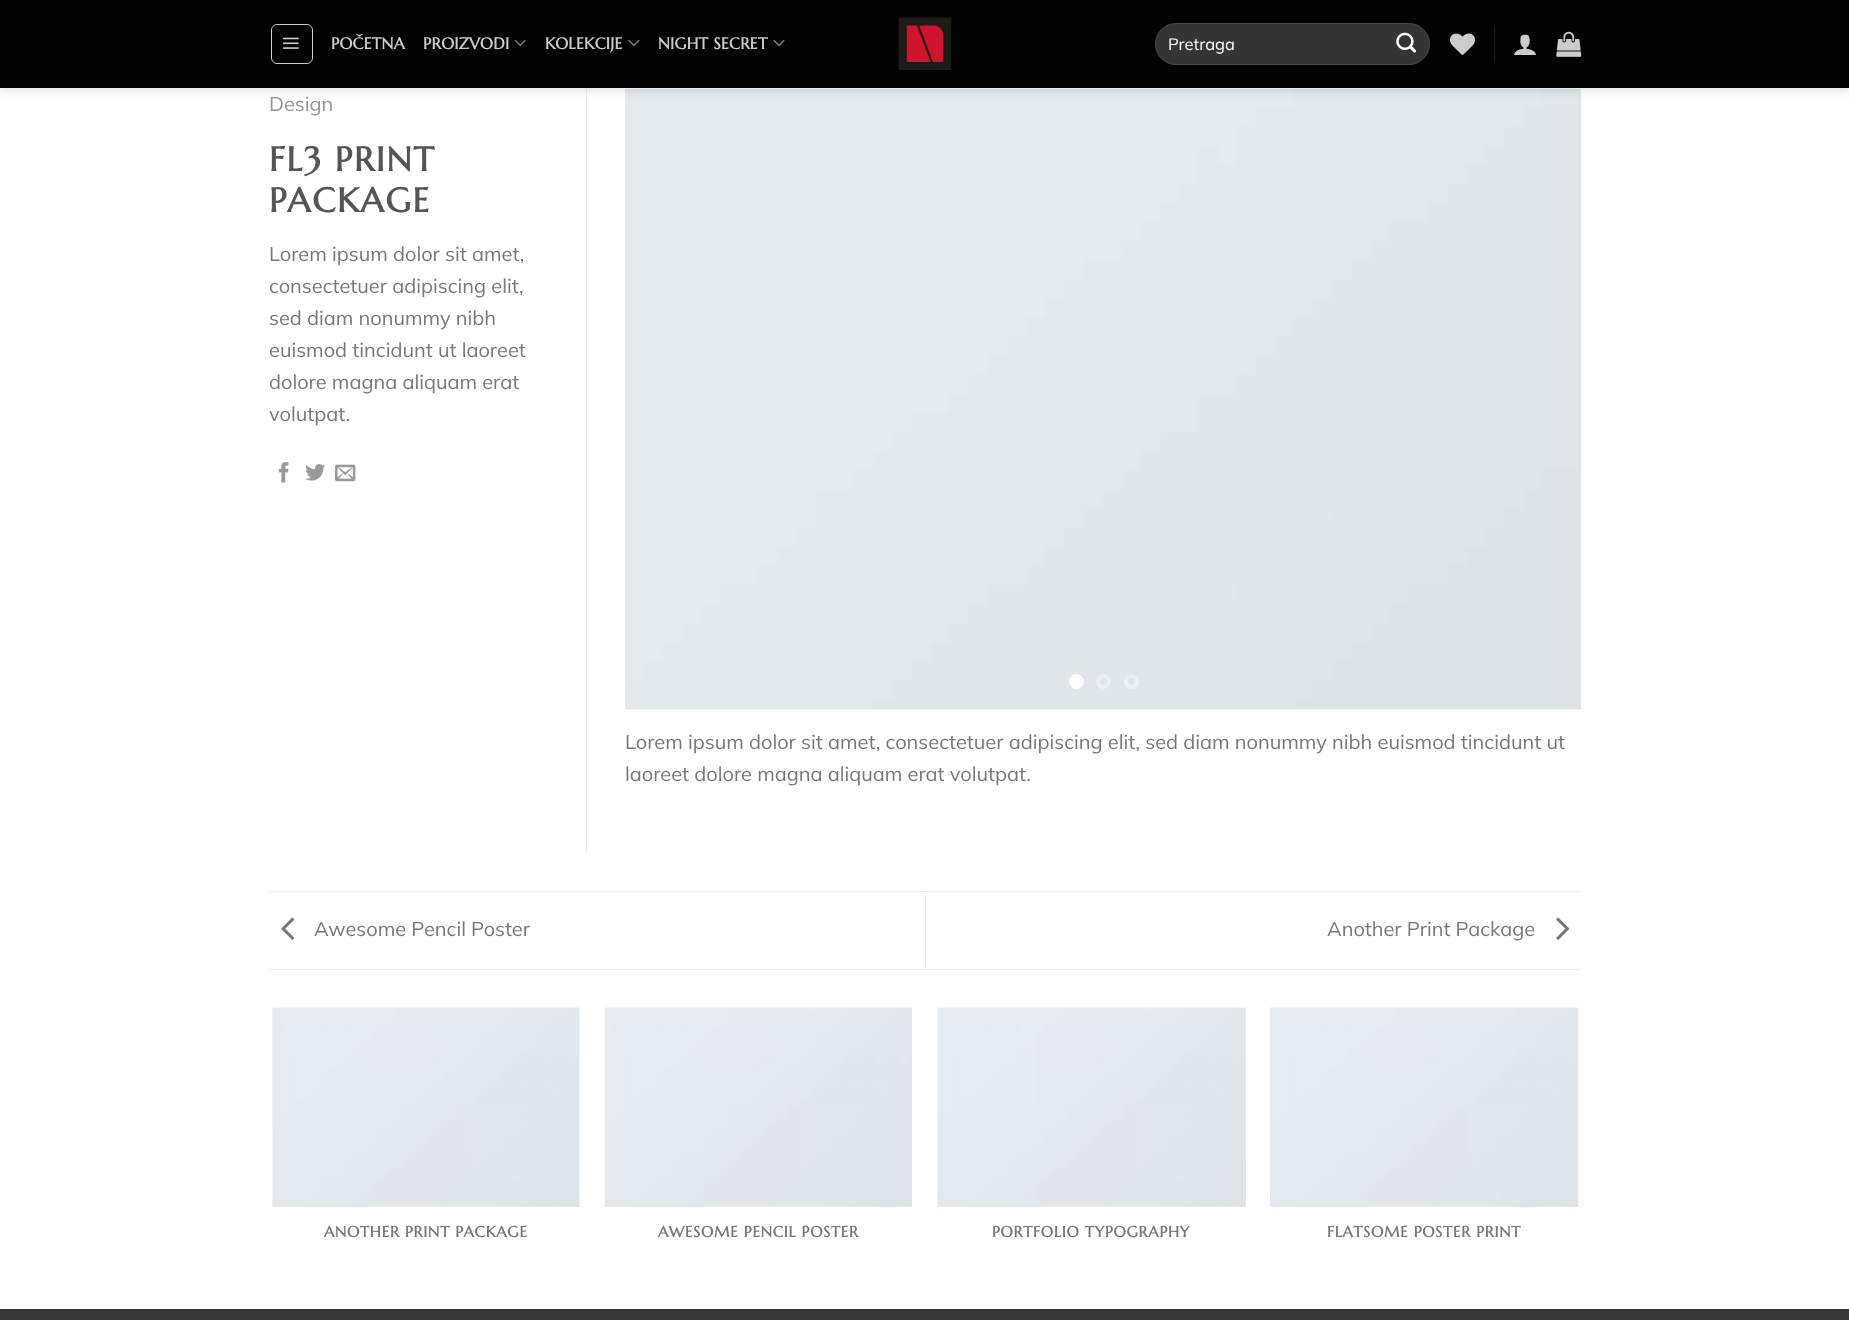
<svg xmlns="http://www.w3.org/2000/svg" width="1849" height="1320">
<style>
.a{font:bold 16px Marcellus SC;letter-spacing:0.25px;fill:#cdcdcd}
.b{font:200 16.5px Mulish;fill:#fff}
.c{font:200 20px Mulish;fill:#949494}
.d{font:bold 34px Marcellus SC;letter-spacing:1.75px;fill:#555}
.e{font:200 20px Mulish;fill:#777}
.f{font:bold 15.25px Marcellus SC;letter-spacing:0.75px;fill:#777}
</style>
<rect width="100%" height="100%" fill="#fff"/>
<path fill="#ececec" d="M586 89h1v765H586z"/>
<image href="12.png" x="625" y="88" width="956" height="622"/>
<path fill="#00000026" filter="blur(6px)" d="M1 1h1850v88H1z"/>
<path fill="#030303" d="M0 0h1849v88H0z"/>
<rect fill="none" stroke="#cdcdcd" x="271.5" y="24.5" width="41" height="39" rx="5.5"/>
<image href="1.png" x="282" y="37" width="17" height="12"/>
<image href="2.png" x="514" y="39" width="12" height="8"/>
<image href="3.png" x="628" y="39" width="12" height="8"/>
<image href="3.png" x="773" y="39" width="12" height="8"/>
<image href="4.png" x="898" y="17" width="54" height="53"/>
<rect fill="#353535" x="1155" y="23" width="275" height="42" rx="21"/>
<rect fill="none" stroke="#ffffff17" x="1155.5" y="23.5" width="274" height="41" rx="20.5"/>
<image href="5.png" x="1396" y="32" width="20" height="21"/>
<image href="6.png" x="1450" y="33" width="25" height="22"/>
<path fill="#1c1c1c" d="M1494 25h1v38H1494z"/>
<image href="7.png" x="1514" y="34" width="22" height="21"/>
<image href="8.png" x="1556" y="31" width="26" height="26"/>
<image href="9.png" x="278" y="462" width="11" height="21"/>
<image href="10.png" x="305" y="464" width="21" height="17"/>
<image href="11.png" x="335" y="464" width="21" height="18"/>
<circle fill="#fff" stroke="#fff" stroke-width="4" cx="1076.5" cy="681.5" r="5.5"/>
<circle fill="none" stroke="#ecf1f2" stroke-width="4" cx="1103.5" cy="681.5" r="5.5"/>
<circle fill="none" stroke="#ebf0f2" stroke-width="4" cx="1131.5" cy="681.5" r="5.5"/>
<path fill="#ececec" d="M269 891h1312v1H269z"/>
<path fill="#ececec" d="M269 969h1312v1H269z"/>
<image href="13.png" x="281" y="917" width="14" height="23"/>
<path fill="#ececec" d="M925 893h1v76H925z"/>
<image href="14.png" x="1556" y="917" width="14" height="23"/>
<image href="15.png" x="272" y="1007" width="308" height="200"/>
<image href="16.png" x="605" y="1007" width="307" height="200"/>
<image href="17.png" x="937" y="1007" width="309" height="200"/>
<image href="18.png" x="1270" y="1007" width="309" height="200"/>
<path fill="#383838" d="M0 1309h1849v11H0z"/>
<text class="a" x="331" y="49">POČETNA</text>
<text class="a" x="423" y="49">PROIZVODI</text>
<text class="a" x="545" y="49">KOLEKCIJE</text>
<text class="a" x="658" y="49">NIGHT SECRET</text>
<text class="b" x="1168" y="50">Pretraga</text>
<text class="c" x="269" y="111">Design</text>
<text class="d" x="269" y="171">FL3 PRINT</text>
<text class="d" x="269" y="212">PACKAGE</text>
<text class="e" x="269" y="261">Lorem ipsum dolor sit amet,</text>
<text class="e" x="269" y="293">consectetuer adipiscing elit,</text>
<text class="e" x="269" y="325">sed diam nonummy nibh</text>
<text class="e" x="269" y="357">euismod tincidunt ut laoreet</text>
<text class="e" x="269" y="389">dolore magna aliquam erat</text>
<text class="e" x="269" y="421">volutpat.</text>
<text class="e" x="625" y="749">Lorem ipsum dolor sit amet, consectetuer adipiscing elit, sed diam nonummy nibh euismod tincidunt ut</text>
<text class="e" x="625" y="781">laoreet dolore magna aliquam erat volutpat.</text>
<text class="e" x="314" y="936">Awesome Pencil Poster</text>
<text class="e" x="1327" y="936">Another Print Package</text>
<text class="f" x="324" y="1237">ANOTHER PRINT PACKAGE</text>
<text class="f" x="658" y="1237">AWESOME PENCIL POSTER</text>
<text class="f" x="992" y="1237">PORTFOLIO TYPOGRAPHY</text>
<text class="f" x="1327" y="1237">FLATSOME POSTER PRINT</text>
</svg>
